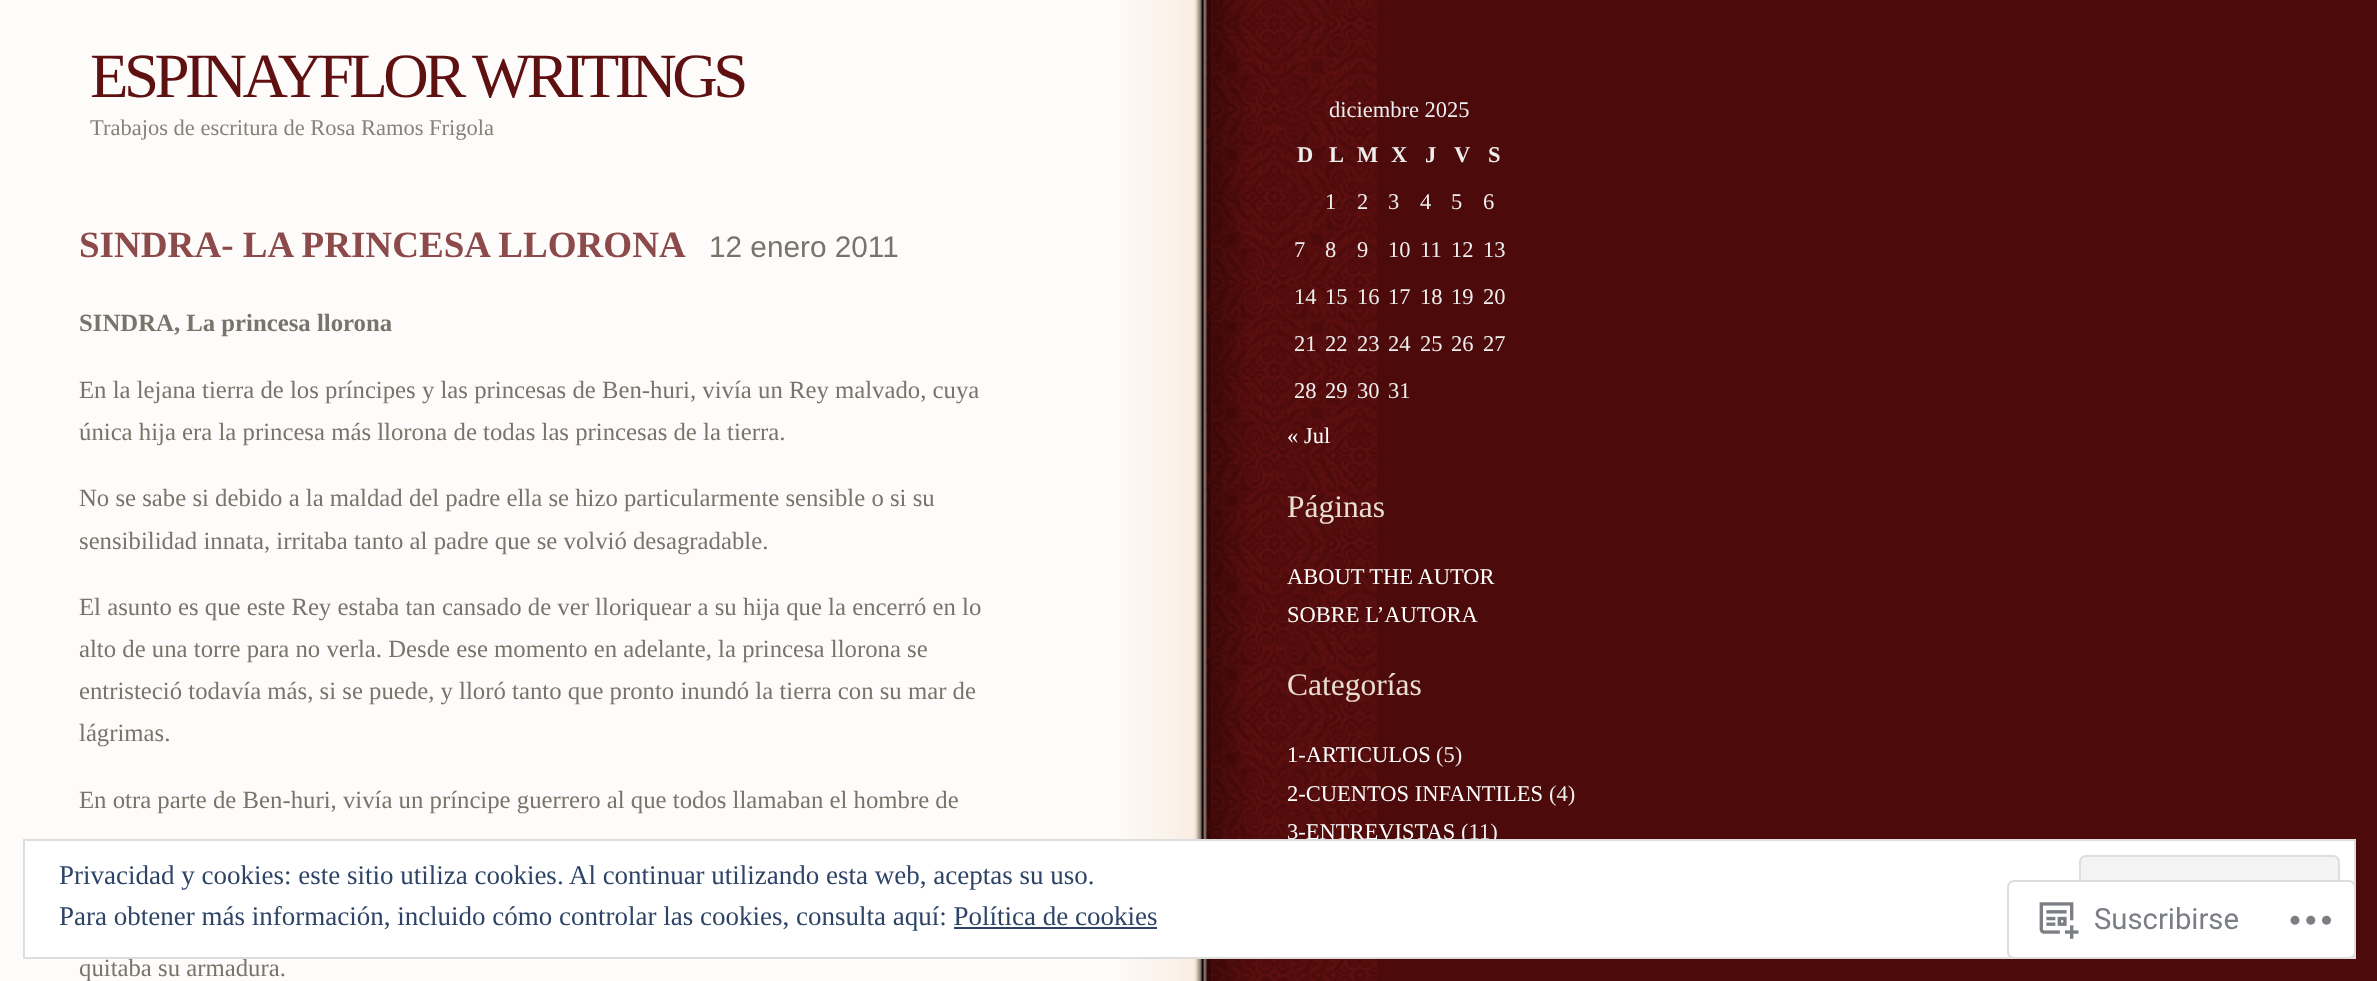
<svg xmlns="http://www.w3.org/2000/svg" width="2377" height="981">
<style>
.a{font:63px Liberation Serif;letter-spacing:-4.5px;fill:#5f1010}
.b{font:22.5px Liberation Serif;fill:#86827a}
.c{font:bold 37.1px Liberation Serif;fill:#8c4a4a}
.d{font:29.75px Liberation Sans;fill:#77756b}
.e{font:bold 24.75px Liberation Serif;fill:#77756b}
.f{font:24.75px Liberation Serif;fill:#77756b}
.g{font:22.5px Liberation Serif;fill:#eee}
.h{font:bold 22.5px Liberation Serif;fill:#eee}
.i{font:22.5px Liberation Serif;fill:#fff}
.j{font:31.5px Liberation Serif;fill:#eaded3}
.k{font:27px Liberation Serif;fill:#2e4467}
.l{font:29.25px Roboto;fill:#7b7f84}
</style>
<rect width="100%" height="100%" fill="#4c0a0a"/>
<path fill="#fefcfa" d="M0 0h1120v981H0z"/>
<image href="1.png" x="1120" y="0" width="257" height="981"/>
<text class="a" x="90" y="97">ESPINAYFLOR WRITINGS</text>
<text class="b" x="90" y="135">Trabajos de escritura de Rosa Ramos Frigola</text>
<text class="c" x="79" y="257">SINDRA- LA PRINCESA LLORONA</text>
<text class="d" x="709" y="257">12 enero 2011</text>
<text class="e" x="79" y="331">SINDRA, La princesa llorona</text>
<text class="f" x="79" y="398">En la lejana tierra de los príncipes y las princesas de Ben-huri, vivía un Rey malvado, cuya</text>
<text class="f" x="79" y="440">única hija era la princesa más llorona de todas las princesas de la tierra.</text>
<text class="f" x="79" y="506">No se sabe si debido a la maldad del padre ella se hizo particularmente sensible o si su</text>
<text class="f" x="79" y="549">sensibilidad innata, irritaba tanto al padre que se volvió desagradable.</text>
<text class="f" x="79" y="615">El asunto es que este Rey estaba tan cansado de ver lloriquear a su hija que la encerró en lo</text>
<text class="f" x="79" y="657">alto de una torre para no verla. Desde ese momento en adelante, la princesa llorona se</text>
<text class="f" x="79" y="699">entristeció todavía más, si se puede, y lloró tanto que pronto inundó la tierra con su mar de</text>
<text class="f" x="79" y="741">lágrimas.</text>
<text class="f" x="79" y="808">En otra parte de Ben-huri, vivía un príncipe guerrero al que todos llamaban el hombre de</text>
<text class="f" x="79" y="976">quitaba su armadura.</text>
<text class="g" x="1329" y="117">diciembre 2025</text>
<text class="h" x="1297" y="162">D</text>
<text class="h" x="1329" y="162">L</text>
<text class="h" x="1357" y="162">M</text>
<text class="h" x="1391" y="162">X</text>
<text class="h" x="1425" y="162">J</text>
<text class="h" x="1454" y="162">V</text>
<text class="h" x="1488" y="162">S</text>
<text class="g" x="1325" y="209">1</text>
<text class="g" x="1357" y="209">2</text>
<text class="g" x="1388" y="209">3</text>
<text class="g" x="1420" y="209">4</text>
<text class="g" x="1451" y="209">5</text>
<text class="g" x="1483" y="209">6</text>
<text class="g" x="1294" y="257">7</text>
<text class="g" x="1325" y="257">8</text>
<text class="g" x="1357" y="257">9</text>
<text class="g" x="1388" y="257">10</text>
<text class="g" x="1420" y="257">11</text>
<text class="g" x="1451" y="257">12</text>
<text class="g" x="1483" y="257">13</text>
<text class="g" x="1294" y="304">14</text>
<text class="g" x="1325" y="304">15</text>
<text class="g" x="1357" y="304">16</text>
<text class="g" x="1388" y="304">17</text>
<text class="g" x="1420" y="304">18</text>
<text class="g" x="1451" y="304">19</text>
<text class="g" x="1483" y="304">20</text>
<text class="g" x="1294" y="351">21</text>
<text class="g" x="1325" y="351">22</text>
<text class="g" x="1357" y="351">23</text>
<text class="g" x="1388" y="351">24</text>
<text class="g" x="1420" y="351">25</text>
<text class="g" x="1451" y="351">26</text>
<text class="g" x="1483" y="351">27</text>
<text class="g" x="1294" y="398">28</text>
<text class="g" x="1325" y="398">29</text>
<text class="g" x="1357" y="398">30</text>
<text class="g" x="1388" y="398">31</text>
<text class="i" x="1287" y="443">« Jul</text>
<text class="j" x="1287" y="517">Páginas</text>
<text class="i" x="1287" y="584">ABOUT THE AUTOR</text>
<text class="i" x="1287" y="622">SOBRE L’AUTORA</text>
<text class="j" x="1287" y="695">Categorías</text>
<text class="i" x="1287" y="762">1-ARTICULOS</text>
<text class="g" x="1436" y="762">(5)</text>
<text class="i" x="1287" y="801">2-CUENTOS INFANTILES</text>
<text class="g" x="1549" y="801">(4)</text>
<text class="i" x="1287" y="839">3-ENTREVISTAS</text>
<text class="g" x="1461" y="839">(11)</text>
<path fill="#fff" stroke="#dedede" stroke-width="2" d="M24 840h2331v118H24z"/>
<text class="k" x="59" y="884">Privacidad y cookies: este sitio utiliza cookies. Al continuar utilizando esta web, aceptas su uso.</text>
<rect fill="#f3f3f3" stroke="#dedede" stroke-width="2" x="2080" y="856" width="259" height="86" rx="6"/>
<rect fill="#fffffffa" x="2007" y="880" width="349" height="79" rx="7"/>
<rect fill="none" stroke="#dcdcdefa" stroke-width="2" x="2008" y="881" width="347" height="77" rx="6"/>
<image href="3.png" x="2290" y="915" width="41" height="10"/>
<image href="2.png" x="2039" y="902" width="40" height="37"/>
<text class="l" x="2094" y="929">Suscribirse</text>
<text class="k" x="59" y="925">Para obtener más información, incluido cómo controlar las cookies, consulta aquí: Política de cookies</text>
<path fill="#2e4467" d="M954 927h203v2H954z"/>
</svg>
